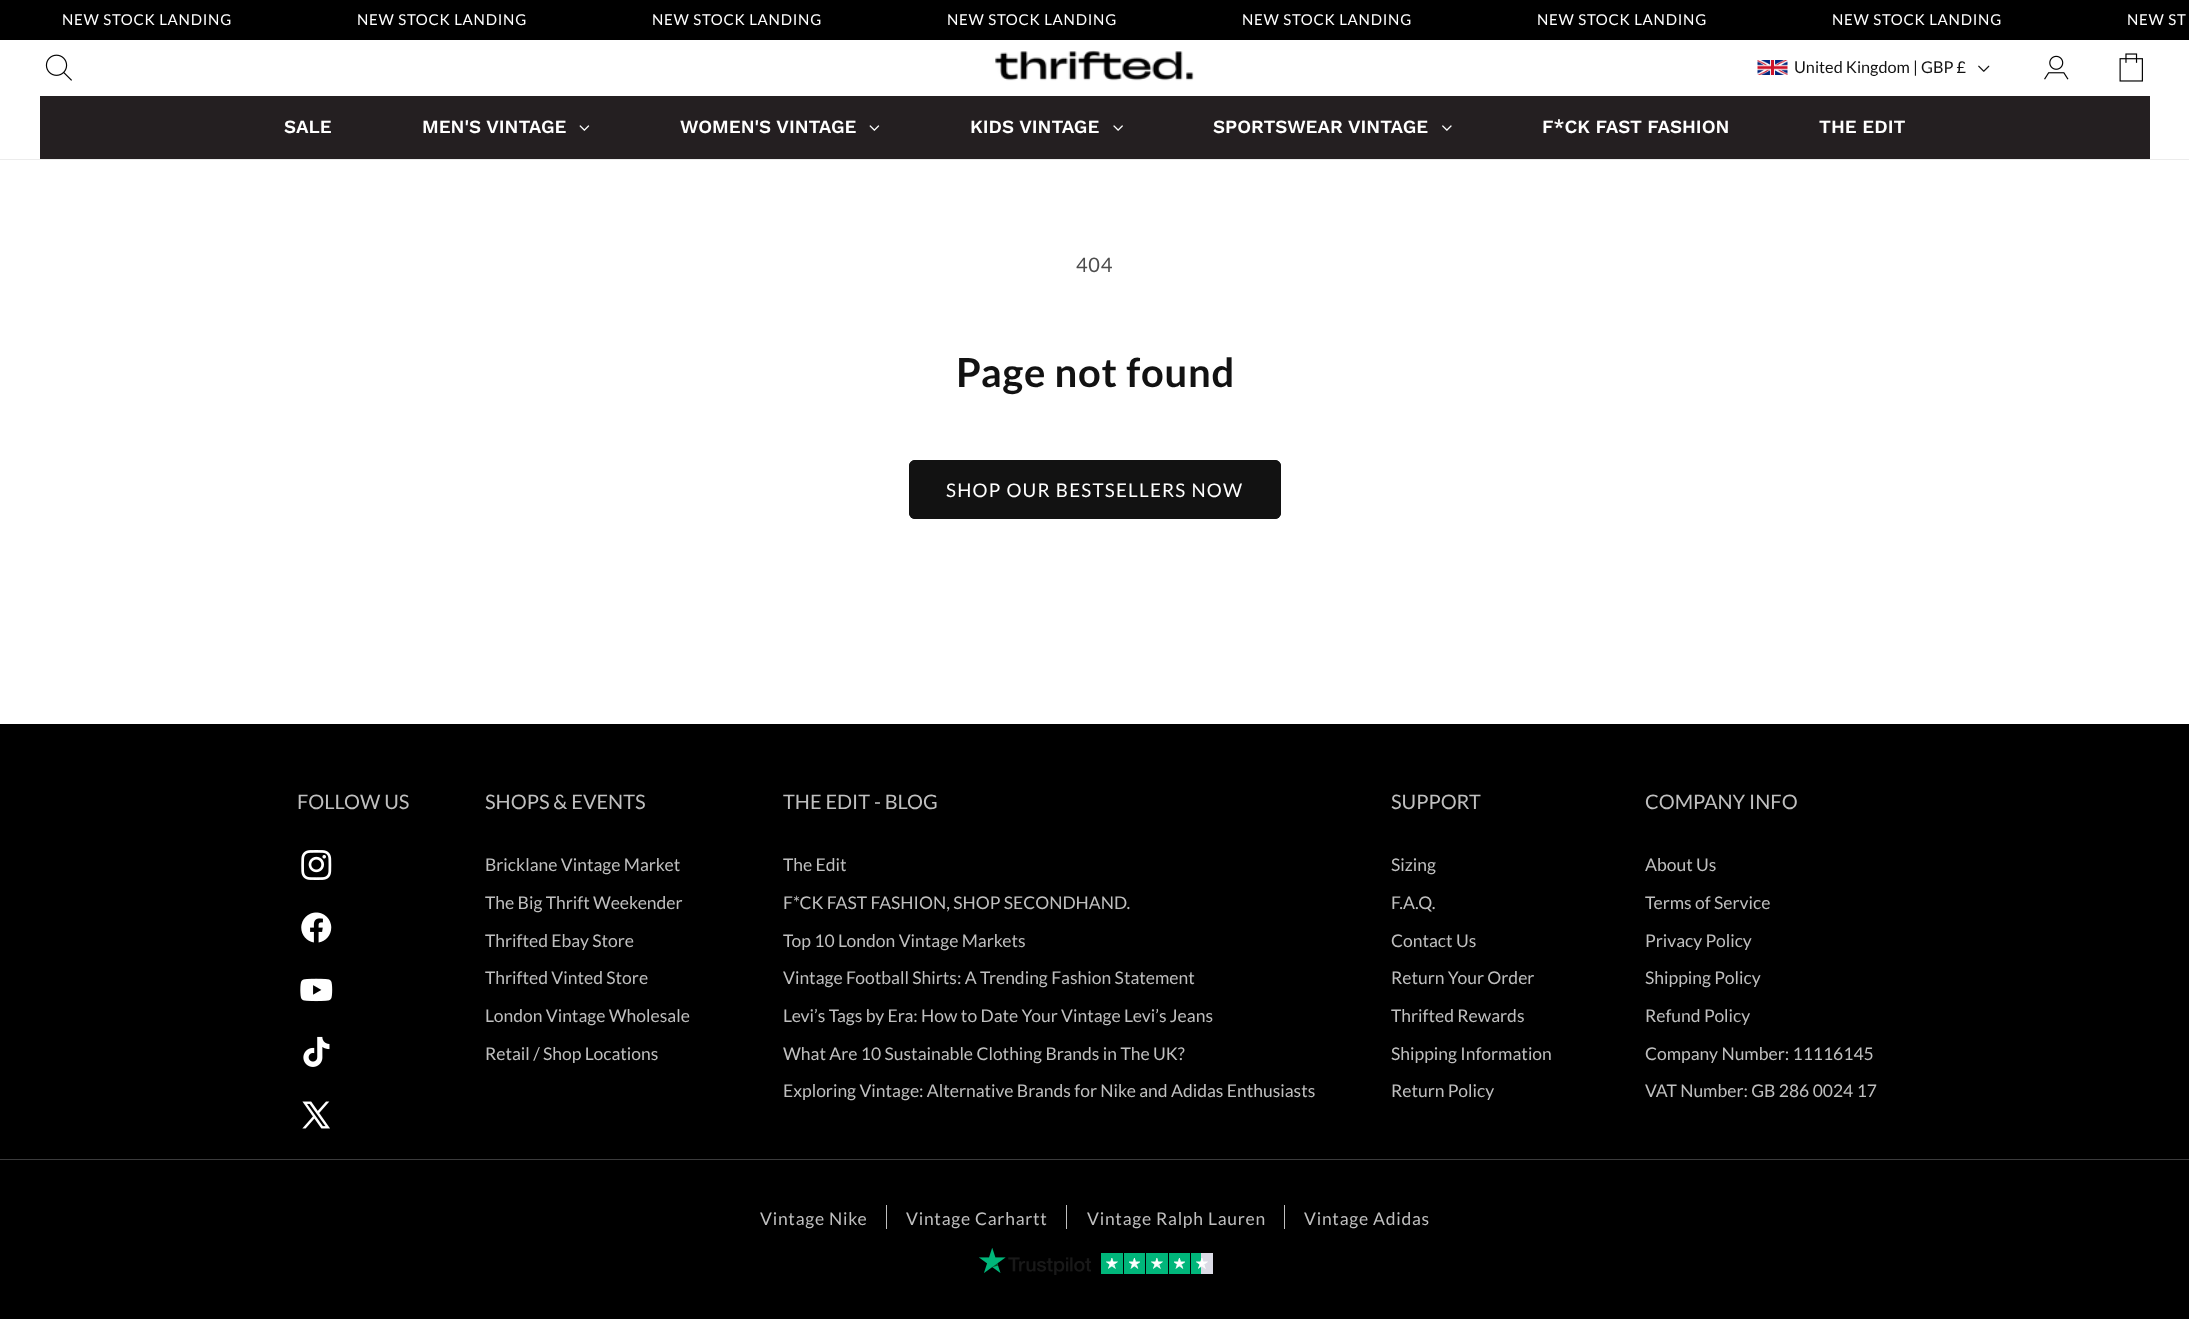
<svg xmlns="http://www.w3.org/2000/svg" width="2189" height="1319">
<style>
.a{font:15px Lato;letter-spacing:0.75px;fill:#fff}
.b{font:16.25px Lato;fill:#121212}
.c{font:600 18.75px Work Sans;fill:#fff}
.d{font:20px Lato;letter-spacing:0.75px;fill:#4d4d4d}
.e{font:bold 40px Lato;letter-spacing:0.75px;fill:#121212}
.f{font:18.75px Lato;letter-spacing:1.25px;fill:#fff}
.g{font:20px Lato;fill:#bfbfbf}
.h{font:17.5px Lato;fill:#bfbfbf}
.i{font:17.5px Lato;letter-spacing:0.75px;fill:#bfbfbf}
</style>
<rect width="100%" height="100%" fill="#fff"/>
<path fill="#000" d="M0 0h2189v40H0z"/>
<path fill="#ececec" d="M0 159h2189v1H0z"/>
<image href="1.png" x="45" y="54" width="27" height="27"/>
<image href="2.png" x="995" y="50" width="199" height="31"/>
<image href="3.png" x="1757" y="60" width="31" height="15"/>
<image href="4.png" x="1978" y="65" width="12" height="7"/>
<image href="5.png" x="2044" y="55" width="25" height="25"/>
<image href="6.png" x="2119" y="53" width="24" height="29"/>
<path fill="#241f21" d="M40 96h2110v63H40z"/>
<image href="7.png" x="579" y="125" width="11" height="6"/>
<image href="7.png" x="869" y="125" width="11" height="6"/>
<image href="8.png" x="1113" y="125" width="10" height="6"/>
<image href="9.png" x="1442" y="125" width="10" height="6"/>
<rect fill="#121212" x="909" y="460" width="372" height="59" rx="6"/>
<rect fill="none" stroke="#121212" x="909.5" y="460.5" width="371" height="58" rx="5.5"/>
<path fill="#000" d="M0 724h2189v595H0z"/>
<image href="10.png" x="301" y="850" width="31" height="30"/>
<image href="11.png" x="301" y="912" width="31" height="31"/>
<image href="12.png" x="300" y="978" width="33" height="24"/>
<image href="13.png" x="303" y="1036" width="27" height="31"/>
<image href="14.png" x="302" y="1101" width="28" height="28"/>
<path fill="#3b3b3c" d="M0 1159h2189v1H0z"/>
<path fill="#bfbfbf" d="M886 1205h1v24H886z"/>
<path fill="#bfbfbf" d="M1066 1205h1v24H1066z"/>
<path fill="#bfbfbf" d="M1284 1205h1v24H1284z"/>
<image href="15.png" x="979" y="1248" width="112" height="27"/>
<path fill="#00b67a" d="M1101 1253h22v21H1101z"/>
<image href="16.png" x="1106" y="1258" width="12" height="11"/>
<path fill="#00b67a" d="M1124 1253h21v21H1124z"/>
<image href="17.png" x="1129" y="1258" width="11" height="11"/>
<path fill="#00b67a" d="M1146 1253h22v21H1146z"/>
<image href="16.png" x="1151" y="1258" width="12" height="11"/>
<path fill="#00b67a" d="M1169 1253h21v21H1169z"/>
<image href="17.png" x="1174" y="1258" width="11" height="11"/>
<path fill="#dcdce6" d="M1201 1253h12v21H1201z"/>
<path fill="#00b67a" d="M1191 1253h10v21H1191z"/>
<image href="18.png" x="1196" y="1258" width="12" height="11"/>
<text class="a" x="62" y="25">NEW STOCK LANDING</text>
<text class="a" x="357" y="25">NEW STOCK LANDING</text>
<text class="a" x="652" y="25">NEW STOCK LANDING</text>
<text class="a" x="947" y="25">NEW STOCK LANDING</text>
<text class="a" x="1242" y="25">NEW STOCK LANDING</text>
<text class="a" x="1537" y="25">NEW STOCK LANDING</text>
<text class="a" x="1832" y="25">NEW STOCK LANDING</text>
<text class="a" x="2127" y="25">NEW ST</text>
<text class="b" x="1794" y="73">United Kingdom | GBP £</text>
<text class="c" x="284" y="133">SALE</text>
<text class="c" x="422" y="133">MEN'S VINTAGE</text>
<text class="c" x="680" y="133">WOMEN'S VINTAGE</text>
<text class="c" x="970" y="133">KIDS VINTAGE</text>
<text class="c" x="1213" y="133">SPORTSWEAR VINTAGE</text>
<text class="c" x="1542" y="133">F*CK FAST FASHION</text>
<text class="c" x="1819" y="133">THE EDIT</text>
<text class="d" x="1076" y="272">404</text>
<text class="e" x="956" y="387">Page not found</text>
<text class="f" x="946" y="497">SHOP OUR BESTSELLERS NOW</text>
<text class="g" x="297" y="809">FOLLOW US</text>
<text class="g" x="485" y="809">SHOPS &amp; EVENTS</text>
<text class="h" x="485" y="871">Bricklane Vintage Market</text>
<text class="h" x="485" y="909">The Big Thrift Weekender</text>
<text class="h" x="485" y="947">Thrifted Ebay Store</text>
<text class="h" x="485" y="984">Thrifted Vinted Store</text>
<text class="h" x="485" y="1022">London Vintage Wholesale</text>
<text class="h" x="485" y="1060">Retail / Shop Locations</text>
<text class="g" x="783" y="809">THE EDIT - BLOG</text>
<text class="h" x="783" y="871">The Edit</text>
<text class="h" x="783" y="909">F*CK FAST FASHION, SHOP SECONDHAND.</text>
<text class="h" x="783" y="947">Top 10 London Vintage Markets</text>
<text class="h" x="783" y="984">Vintage Football Shirts: A Trending Fashion Statement</text>
<text class="h" x="783" y="1022">Levi’s Tags by Era: How to Date Your Vintage Levi’s Jeans</text>
<text class="h" x="783" y="1060">What Are 10 Sustainable Clothing Brands in The UK?</text>
<text class="h" x="783" y="1097">Exploring Vintage: Alternative Brands for Nike and Adidas Enthusiasts</text>
<text class="g" x="1391" y="809">SUPPORT</text>
<text class="h" x="1391" y="871">Sizing</text>
<text class="h" x="1391" y="909">F.A.Q.</text>
<text class="h" x="1391" y="947">Contact Us</text>
<text class="h" x="1391" y="984">Return Your Order</text>
<text class="h" x="1391" y="1022">Thrifted Rewards</text>
<text class="h" x="1391" y="1060">Shipping Information</text>
<text class="h" x="1391" y="1097">Return Policy</text>
<text class="g" x="1645" y="809">COMPANY INFO</text>
<text class="h" x="1645" y="871">About Us</text>
<text class="h" x="1645" y="909">Terms of Service</text>
<text class="h" x="1645" y="947">Privacy Policy</text>
<text class="h" x="1645" y="984">Shipping Policy</text>
<text class="h" x="1645" y="1022">Refund Policy</text>
<text class="h" x="1645" y="1060">Company Number: 11116145</text>
<text class="h" x="1645" y="1097">VAT Number: GB 286 0024 17</text>
<text class="i" x="760" y="1225">Vintage Nike</text>
<text class="i" x="906" y="1225">Vintage Carhartt</text>
<text class="i" x="1087" y="1225">Vintage Ralph Lauren</text>
<text class="i" x="1304" y="1225">Vintage Adidas</text>
</svg>
